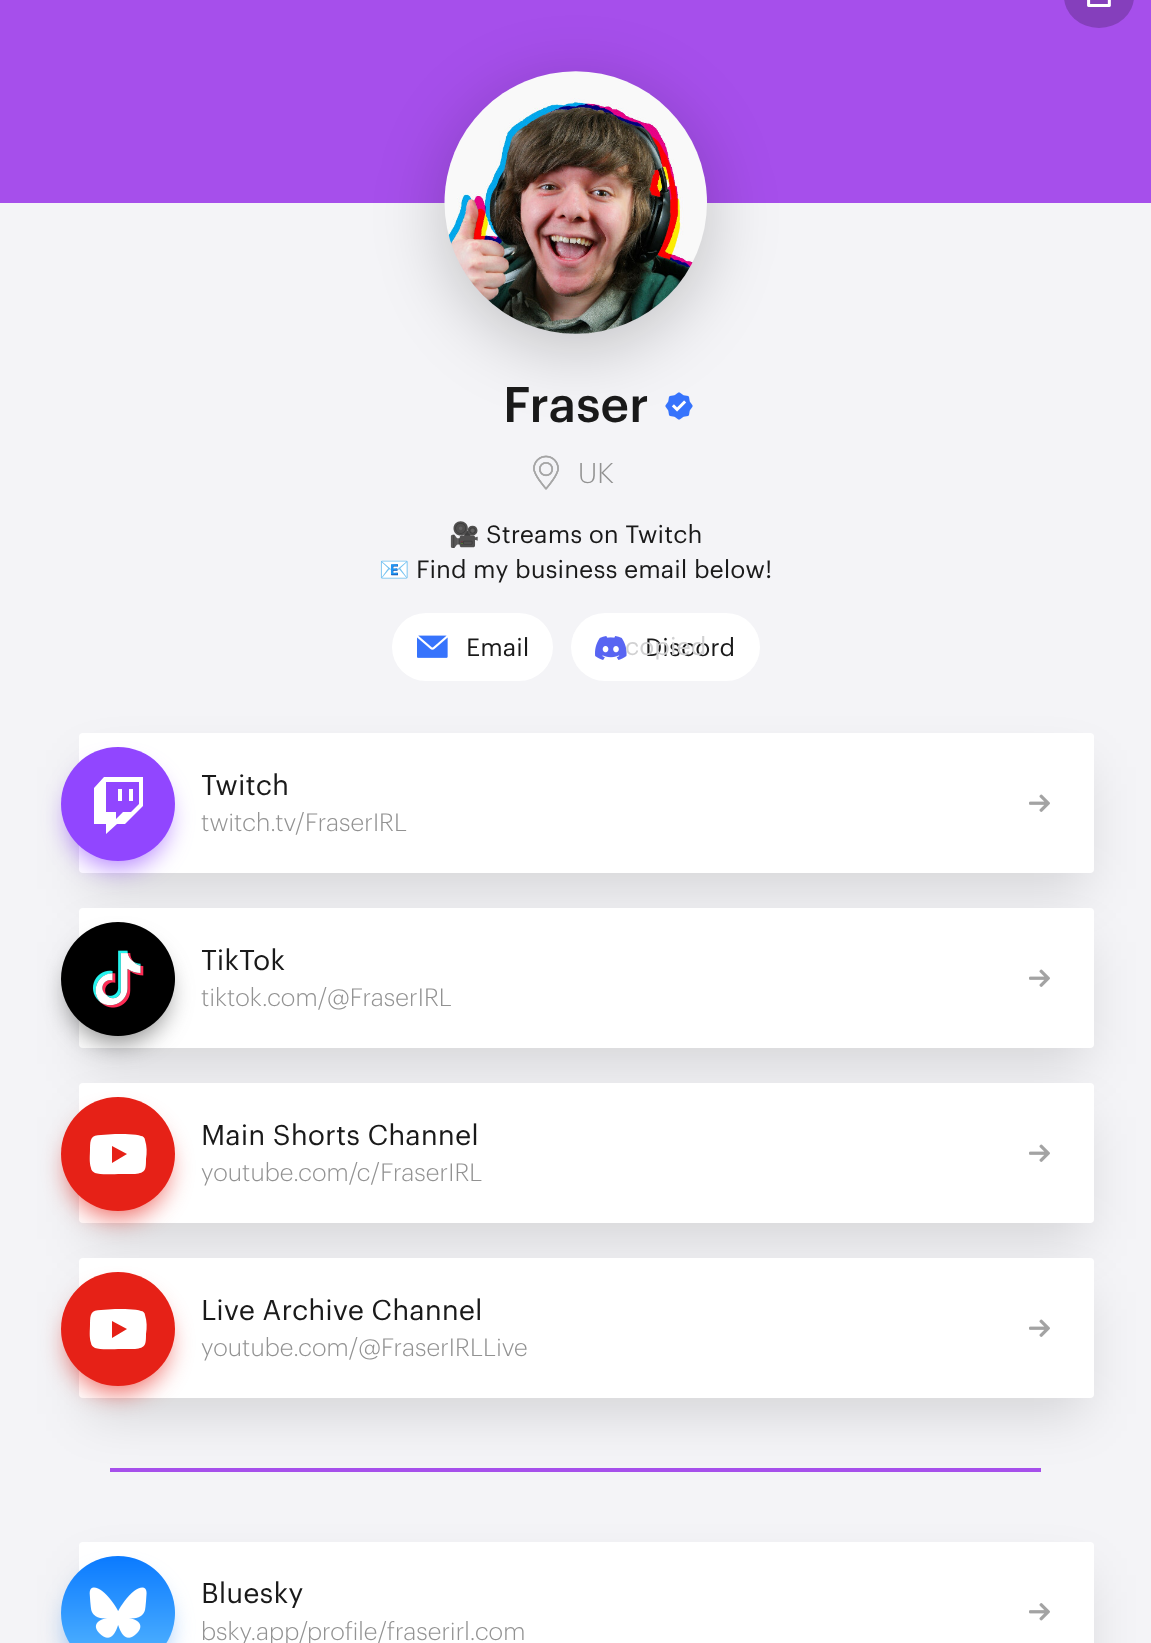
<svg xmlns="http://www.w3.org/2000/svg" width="1151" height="1643">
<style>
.a{font:500 49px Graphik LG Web;fill:#1a1a1a}
.b{font:300 28px Graphik LG Web;fill:#929292}
.c{font:24.5px Noto Color Emoji;fill:#1a1a1a}
.d{font:24.5px Graphik LG Web;fill:#1a1a1a}
.e{font:24.5px Graphik LG Web;fill:#d1d1d2}
.f{font:28px Graphik LG Web;fill:#1a1a1a}
.g{font:300 24.5px Graphik LG Web;fill:#929292}
</style>
<rect width="100%" height="100%" fill="#f4f4f7"/>
<path fill="#a64feb" d="M0 0h1151v203H0z"/>
<rect fill="#853fbc" x="1064" y="-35" width="70" height="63" rx="35"/>
<image href="1.png" x="1087" y="0" width="24" height="7"/>
<rect fill="#00000036" filter="blur(35px)" x="445" y="86" width="262" height="262" rx="131"/>
<image href="2.png" x="444" y="71" width="263" height="263"/>
<image href="3.png" x="665" y="392" width="28" height="28"/>
<image href="4.png" x="533" y="455" width="26" height="35"/>
<rect fill="#fff" x="392" y="613" width="161" height="68" rx="34"/>
<image href="5.png" x="417" y="635" width="31" height="23"/>
<rect fill="#fff" x="571" y="613" width="189" height="68" rx="34"/>
<image href="6.png" x="595" y="636" width="32" height="24"/>
<path fill="#00000021" filter="blur(26px)" d="M88 767h997v122H88z"/>
<rect fill="#fff" x="79" y="733" width="1015" height="140" rx="4"/>
<rect fill="#9146ffa6" filter="blur(12px)" x="68" y="768" width="100" height="100" rx="50"/>
<circle fill="#9146ff" cx="118" cy="804" r="57"/>
<path fill="#fff" d="M104 777l-10 11v36h12v10l11-10h8l18-18v-29zm35 27l-8 8h-8l-7 7v-7h-10v-30h33z"/>
<path fill="#fff" d="M129 789h4v12H129z"/>
<path fill="#fff" d="M118 789h4v12H118z"/>
<image href="7.png" x="1029" y="794" width="21" height="18"/>
<path fill="#00000021" filter="blur(26px)" d="M88 942h997v122H88z"/>
<rect fill="#fff" x="79" y="908" width="1015" height="140" rx="4"/>
<rect fill="#505050a6" filter="blur(12px)" x="68" y="943" width="100" height="100" rx="50"/>
<image href="8.png" x="61" y="922" width="114" height="114"/>
<image href="7.png" x="1029" y="969" width="21" height="18"/>
<path fill="#00000021" filter="blur(26px)" d="M88 1117h997v122H88z"/>
<rect fill="#fff" x="79" y="1083" width="1015" height="140" rx="4"/>
<rect fill="#e62117a6" filter="blur(12px)" x="68" y="1118" width="100" height="100" rx="50"/>
<circle fill="#e62117" cx="118" cy="1154" r="57"/>
<path fill="#fff" d="M145 1140c0-2-2-4-4-4c-5-2-19-2-26-2l-14 1c-10 0-11 4-11 14c0 6-1 13 1 19c0 2 2 4 4 5c5 2 19 1 26 1h14c11-1 11-5 11-15c1-6 1-13-1-19zm-33 23v-17l15 8z"/>
<image href="7.png" x="1029" y="1144" width="21" height="18"/>
<path fill="#a64feb" d="M110 1468h931v4H110z"/>
<path fill="#00000021" filter="blur(26px)" d="M88 1292h997v122H88z"/>
<rect fill="#fff" x="79" y="1258" width="1015" height="140" rx="4"/>
<rect fill="#e62117a6" filter="blur(12px)" x="68" y="1293" width="100" height="100" rx="50"/>
<circle fill="#e62117" cx="118" cy="1329" r="57"/>
<path fill="#fff" d="M145 1315c0-2-2-4-4-4c-5-2-19-2-26-2l-14 1c-10 0-11 4-11 14c0 6-1 13 1 19c0 2 2 4 4 5c5 2 19 1 26 1h14c11-1 11-5 11-15c1-6 1-13-1-19zm-33 23v-17l15 8z"/>
<image href="7.png" x="1029" y="1319" width="21" height="18"/>
<path fill="#00000021" filter="blur(26px)" d="M88 1575h997v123H88z"/>
<rect fill="#fff" x="79" y="1542" width="1015" height="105" rx="4"/>
<rect fill="#56a0f8a6" filter="blur(12px)" x="68" y="1577" width="100" height="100" rx="50"/>
<image href="9.png" x="61" y="1556" width="114" height="87"/>
<image href="10.png" x="1029" y="1603" width="21" height="18"/>
<text class="a" x="503" y="422">Fraser</text>
<text class="b" x="578" y="483">UK</text>
<text class="c" x="449" y="543">🎥</text>
<text class="d" x="486" y="543">Streams on Twitch</text>
<text class="c" x="379" y="578">📧</text>
<text class="d" x="416" y="578">Find my business email below!</text>
<text class="d" x="466" y="656">Email</text>
<text class="d" x="645" y="656">Discord</text>
<text class="e" x="625" y="655">copied</text>
<text class="f" x="201" y="795">Twitch</text>
<text class="g" x="201" y="831">twitch.tv/FraserIRL</text>
<text class="f" x="201" y="970">TikTok</text>
<text class="g" x="201" y="1006">tiktok.com/@FraserIRL</text>
<text class="f" x="201" y="1145">Main Shorts Channel</text>
<text class="g" x="201" y="1181">youtube.com/c/FraserIRL</text>
<text class="f" x="201" y="1320">Live Archive Channel</text>
<text class="g" x="201" y="1356">youtube.com/@FraserIRLLive</text>
<text class="f" x="201" y="1603">Bluesky</text>
<text class="g" x="201" y="1640">bsky.app/profile/fraserirl.com</text>
</svg>
